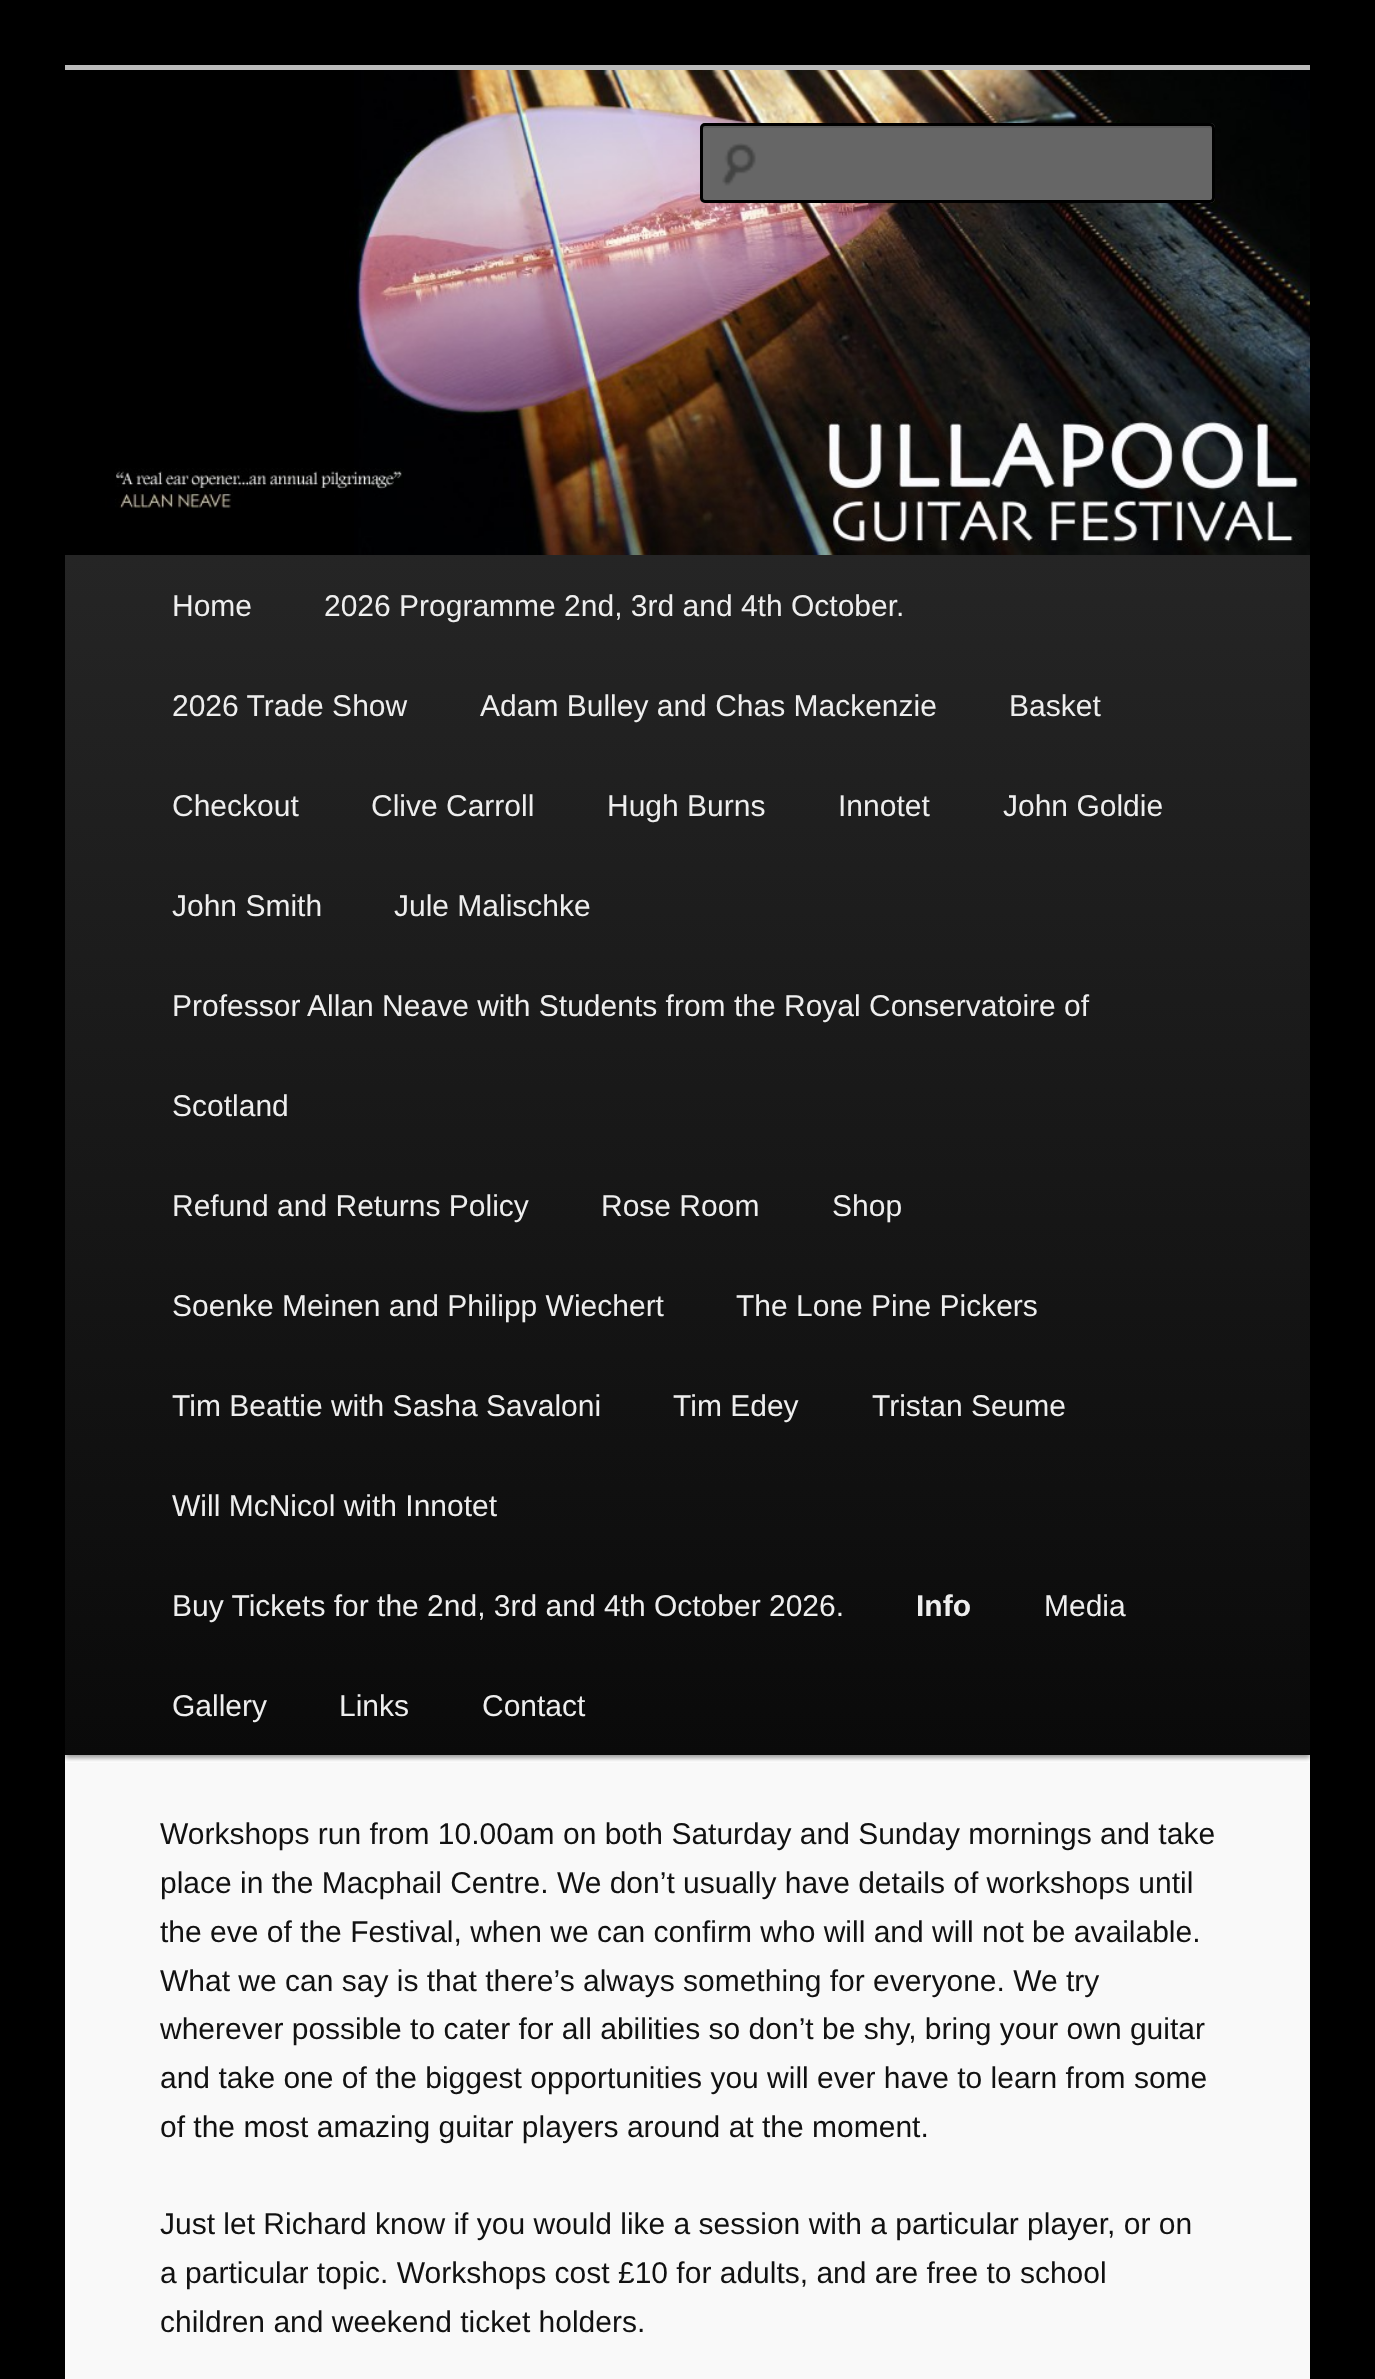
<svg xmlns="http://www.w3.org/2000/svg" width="1375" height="2379">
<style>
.a{font:30px Liberation Sans;fill:#eee}
.b{font:bold 30px Liberation Sans;fill:#eee}
.c{font:30px Liberation Sans;fill:#111}
</style>
<defs>
<linearGradient id="g1" gradientUnits="userSpaceOnUse" x1="687" y1="555" x2="688" y2="1755"><stop offset="0" stop-color="#252525"/><stop offset="1" stop-color="#0a0a0a"/></linearGradient>
</defs>
<rect width="100%" height="100%" fill="#000"/>
<path fill="#fff" d="M65 1755h1245v8H65z"/>
<path fill="#bbb" d="M65 65h1245v5H65z"/>
<path fill="#f9f9f9" d="M65 1763h1245v616H65z"/>
<path fill="#00000066" filter="blur(2.5px)" d="M65 558h1245v1200H65z"/>
<image href="1.png" x="65" y="70" width="1245" height="485"/>
<rect fill="#666" x="700" y="123" width="515" height="80" rx="5"/>
<image href="2.png" x="722" y="143" width="34" height="43"/>
<path fill="#5c5c5c" d="M705 128h505c1 0 2 1 2 2v70c1-1 1-2 1-2v-70c0-2-1-3-3-3h-504c-2 0-3 1-3 3v1z"/>
<rect fill="none" stroke="#000" stroke-width="3" x="701.5" y="124.5" width="512" height="77" rx="3.5"/>
<path fill="url(#g1)" d="M65 555h1245v1200H65z"/>
<text class="a" x="172" y="616">Home</text>
<text class="a" x="324" y="616">2026 Programme 2nd, 3rd and 4th October.</text>
<text class="a" x="172" y="716">2026 Trade Show</text>
<text class="a" x="480" y="716">Adam Bulley and Chas Mackenzie</text>
<text class="a" x="1009" y="716">Basket</text>
<text class="a" x="172" y="816">Checkout</text>
<text class="a" x="371" y="816">Clive Carroll</text>
<text class="a" x="607" y="816">Hugh Burns</text>
<text class="a" x="838" y="816">Innotet</text>
<text class="a" x="1003" y="816">John Goldie</text>
<text class="a" x="172" y="916">John Smith</text>
<text class="a" x="394" y="916">Jule Malischke</text>
<text class="a" x="172" y="1016">Professor Allan Neave with Students from the Royal Conservatoire of</text>
<text class="a" x="172" y="1116">Scotland</text>
<text class="a" x="172" y="1216">Refund and Returns Policy</text>
<text class="a" x="601" y="1216">Rose Room</text>
<text class="a" x="832" y="1216">Shop</text>
<text class="a" x="172" y="1316">Soenke Meinen and Philipp Wiechert</text>
<text class="a" x="736" y="1316">The Lone Pine Pickers</text>
<text class="a" x="172" y="1416">Tim Beattie with Sasha Savaloni</text>
<text class="a" x="673" y="1416">Tim Edey</text>
<text class="a" x="872" y="1416">Tristan Seume</text>
<text class="a" x="172" y="1516">Will McNicol with Innotet</text>
<text class="a" x="172" y="1616">Buy Tickets for the 2nd, 3rd and 4th October 2026.</text>
<text class="b" x="916" y="1616">Info</text>
<text class="a" x="1044" y="1616">Media</text>
<text class="a" x="172" y="1716">Gallery</text>
<text class="a" x="339" y="1716">Links</text>
<text class="a" x="482" y="1716">Contact</text>
<text class="c" x="160" y="1844">Workshops run from 10.00am on both Saturday and Sunday mornings and take</text>
<text class="c" x="160" y="1893">place in the Macphail Centre. We don’t usually have details of workshops until</text>
<text class="c" x="160" y="1942">the eve of the Festival, when we can confirm who will and will not be available.</text>
<text class="c" x="160" y="1991">What we can say is that there’s always something for everyone. We try</text>
<text class="c" x="160" y="2039">wherever possible to cater for all abilities so don’t be shy, bring your own guitar</text>
<text class="c" x="160" y="2088">and take one of the biggest opportunities you will ever have to learn from some</text>
<text class="c" x="160" y="2137">of the most amazing guitar players around at the moment.</text>
<text class="c" x="160" y="2234">Just let Richard know if you would like a session with a particular player, or on</text>
<text class="c" x="160" y="2283">a particular topic. Workshops cost £10 for adults, and are free to school</text>
<text class="c" x="160" y="2332">children and weekend ticket holders.</text>
</svg>
